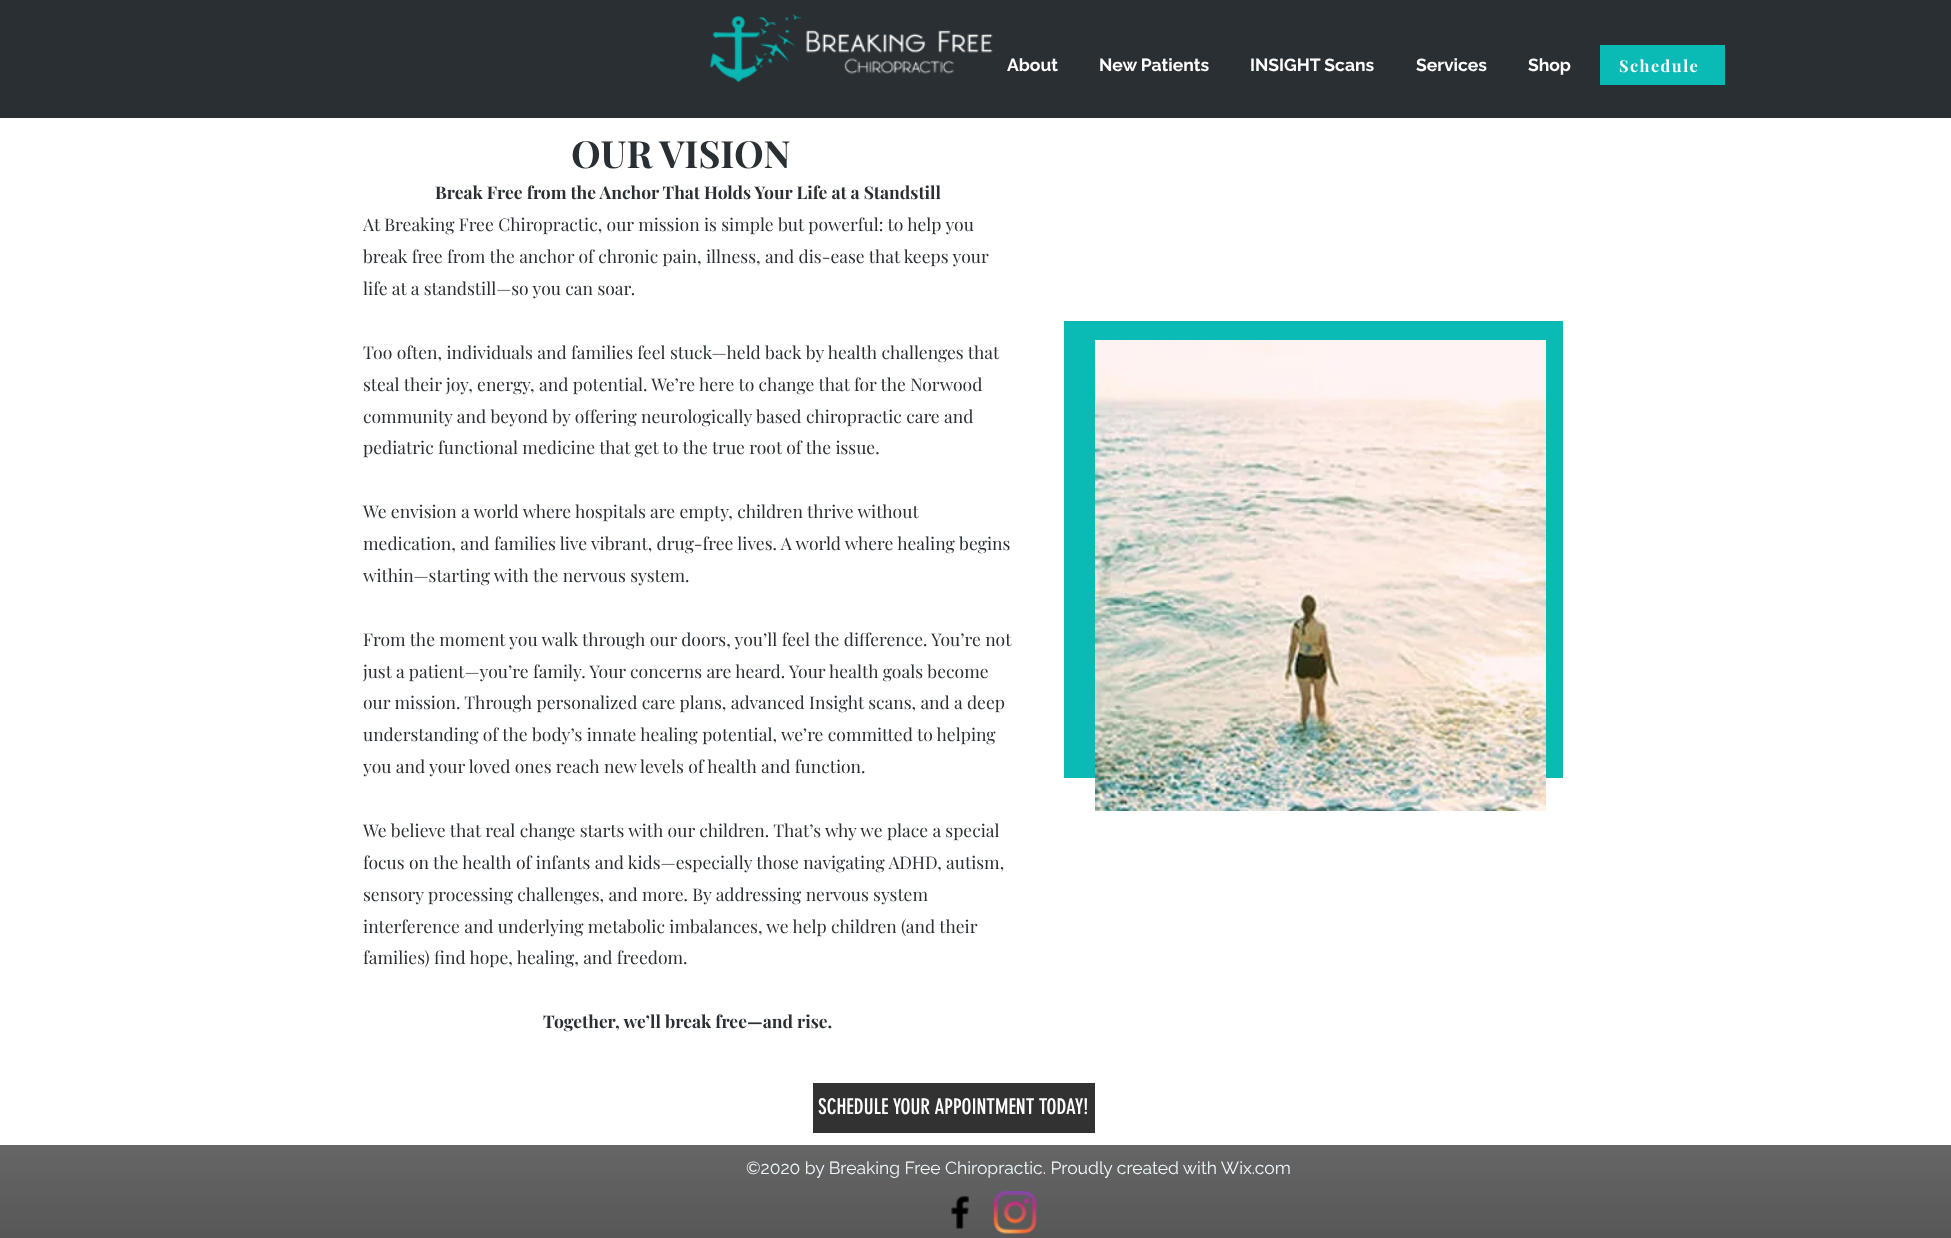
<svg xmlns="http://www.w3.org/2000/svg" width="1951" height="1238">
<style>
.a{font:bold 17.5px Raleway;fill:#fff}
.b{font:bold 16.25px Playfair Display;letter-spacing:1.5px;fill:#fff}
.c{font:bold 37.5px 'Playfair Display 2';fill:#292f33}
.d{font:bold 17.5px Playfair Display;fill:#292f33}
.e{font:17.5px Playfair Display;fill:#292f33}
.f{font:21.25px 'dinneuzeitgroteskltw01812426';fill:#fff}
.g{font:17.5px Raleway;fill:#f0faff}
</style>
<rect width="100%" height="100%" fill="#fff"/>
<path fill="#292f33" d="M0 0h1951v118H0z"/>
<image href="1.png" x="709" y="13" width="284" height="70"/>
<path fill="#0abab5" d="M1600 45h125v40H1600z"/>
<path fill="#0abab5" d="M1064 321h499v457H1064z"/>
<image href="2.png" x="1095" y="340" width="451" height="471"/>
<path fill="#323232" d="M813 1083h282v50H813z"/>
<path fill="#323232" d="M0 1145h1951v93H0z"/>
<image href="3.png" x="0" y="1145" width="1951" height="93"/>
<image href="4.png" x="951" y="1196" width="18" height="33"/>
<image href="5.png" x="993" y="1191" width="44" height="43"/>
<text class="a" x="1007" y="71">About</text>
<text class="a" x="1099" y="71">New Patients</text>
<text class="a" x="1250" y="71">INSIGHT Scans</text>
<text class="a" x="1416" y="71">Services</text>
<text class="a" x="1528" y="71">Shop</text>
<text class="b" x="1619" y="72">Schedule</text>
<text class="c" x="571" y="168">OUR VISION</text>
<text class="d" x="435" y="199">Break Free from the Anchor That Holds Your Life at a Standstill</text>
<text class="e" x="363" y="231">At Breaking Free Chiropractic, our mission is simple but powerful: to help you</text>
<text class="e" x="363" y="263">break free from the anchor of chronic pain, illness, and dis-ease that keeps your</text>
<text class="e" x="363" y="295">life at a standstill—so you can soar.</text>
<text class="e" x="363" y="359">Too often, individuals and families feel stuck—held back by health challenges that</text>
<text class="e" x="363" y="391">steal their joy, energy, and potential. We’re here to change that for the Norwood</text>
<text class="e" x="363" y="423">community and beyond by offering neurologically based chiropractic care and</text>
<text class="e" x="363" y="454">pediatric functional medicine that get to the true root of the issue.</text>
<text class="e" x="363" y="518">We envision a world where hospitals are empty, children thrive without</text>
<text class="e" x="363" y="550">medication, and families live vibrant, drug-free lives. A world where healing begins</text>
<text class="e" x="363" y="582">within—starting with the nervous system.</text>
<text class="e" x="363" y="646">From the moment you walk through our doors, you’ll feel the difference. You’re not</text>
<text class="e" x="363" y="678">just a patient—you’re family. Your concerns are heard. Your health goals become</text>
<text class="e" x="363" y="709">our mission. Through personalized care plans, advanced Insight scans, and a deep</text>
<text class="e" x="363" y="741">understanding of the body’s innate healing potential, we’re committed to helping</text>
<text class="e" x="363" y="773">you and your loved ones reach new levels of health and function.</text>
<text class="e" x="363" y="837">We believe that real change starts with our children. That’s why we place a special</text>
<text class="e" x="363" y="869">focus on the health of infants and kids—especially those navigating ADHD, autism,</text>
<text class="e" x="363" y="901">sensory processing challenges, and more. By addressing nervous system</text>
<text class="e" x="363" y="933">interference and underlying metabolic imbalances, we help children (and their</text>
<text class="e" x="363" y="964">families) find hope, healing, and freedom.</text>
<text class="d" x="543" y="1028">Together, we’ll break free—and rise.</text>
<text class="f" x="818" y="1114">SCHEDULE YOUR APPOINTMENT TODAY!</text>
<text class="g" x="746" y="1174">©2020 by Breaking Free Chiropractic. Proudly created with Wix.com</text>
</svg>
